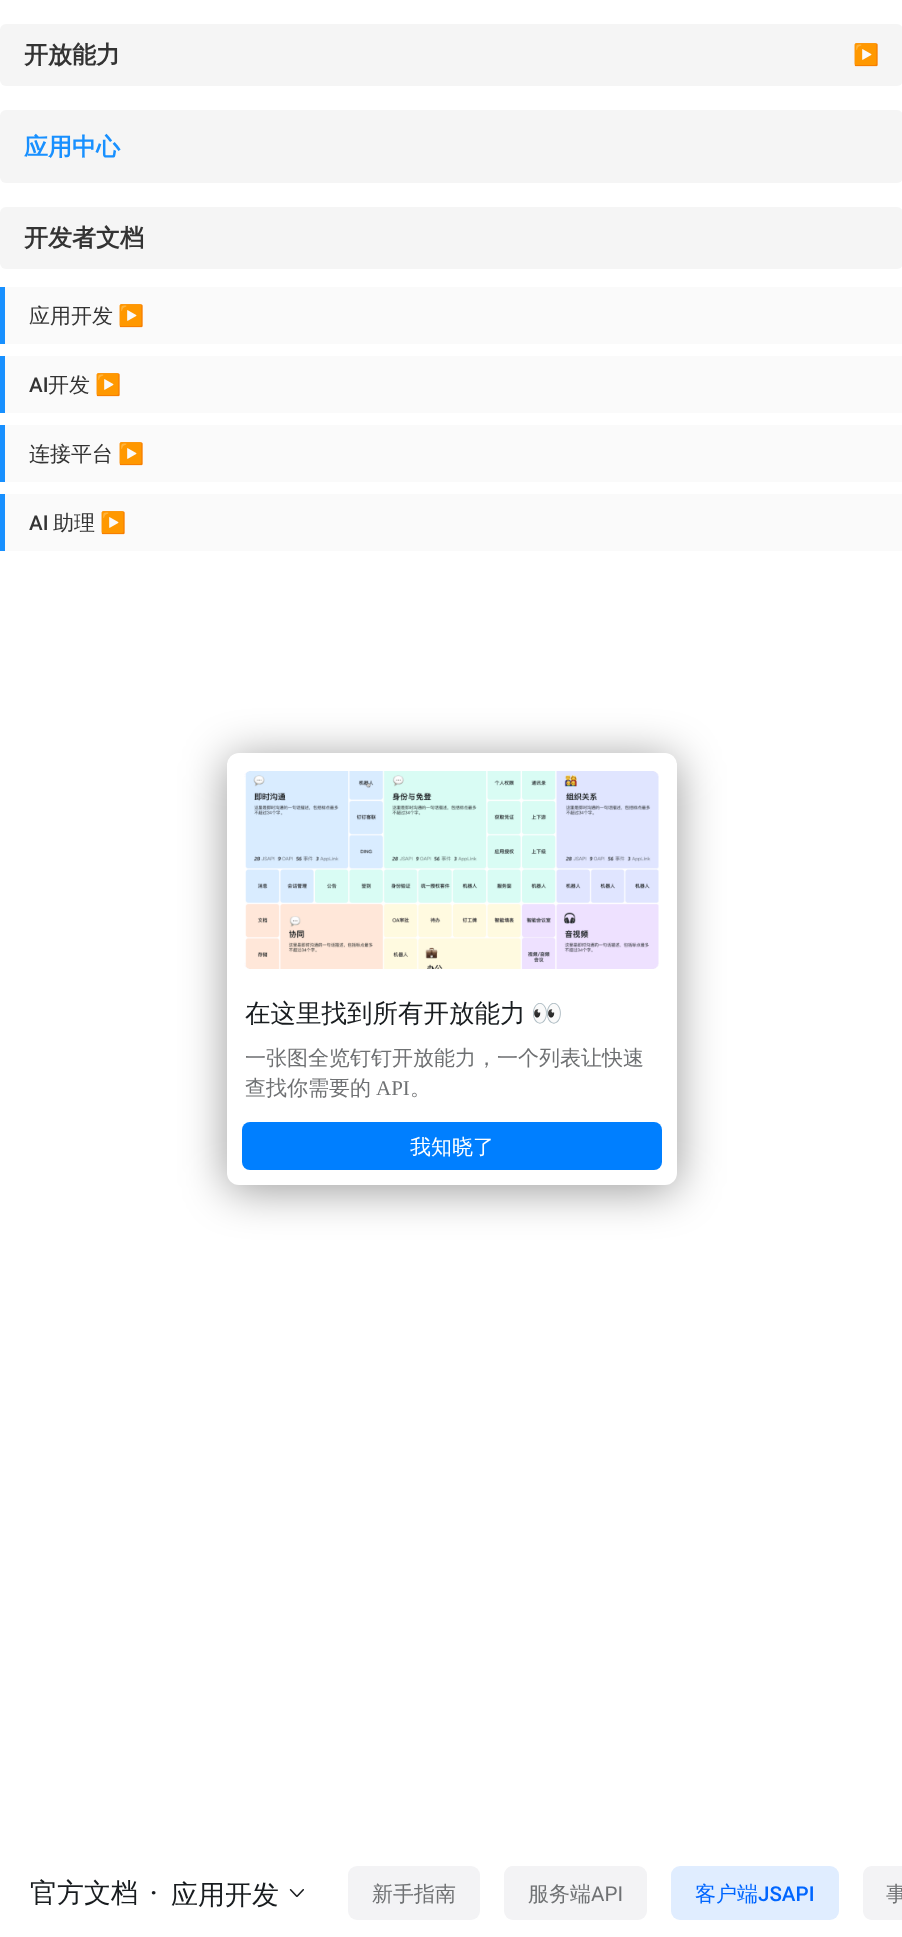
<svg xmlns="http://www.w3.org/2000/svg" width="902" height="1937">
<style>
.a{font:bold 24px WenQuanYi Zen Hei;fill:#333}
.b{font:21px Noto Color Emoji;fill:#666}
.c{font:bold 24px WenQuanYi Zen Hei;fill:#1890ff}
.d{font:500 21px WenQuanYi Zen Hei;fill:#333}
.e{font:21px Noto Color Emoji;fill:#333}
.f{font:500 21px Roboto;fill:#333}
.g{font:500 27px WenQuanYi Zen Hei;fill:#181c1f}
.h{font:500 27px Roboto;fill:#181c1f}
.i{font:500 21px WenQuanYi Zen Hei;fill:#6f7173}
.j{font:21px Roboto;fill:#6f7173}
.k{font:500 21px WenQuanYi Zen Hei;fill:#06f}
.l{font:500 21px Roboto;fill:#06f}
.m{font:500 25.5px WenQuanYi Zen Hei;fill:#181c1f}
.n{font:25.5px Noto Color Emoji;fill:#181c1f}
.o{font:21px Liberation Serif;fill:#6f7173}
.p{font:500 21px WenQuanYi Zen Hei;fill:#fff}
</style>
<rect width="100%" height="100%" fill="#fff"/>
<rect fill="#f5f5f5" y="24" width="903" height="62" rx="6"/>
<rect fill="#f5f5f5" y="110" width="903" height="73" rx="6"/>
<rect fill="#f5f5f5" y="207" width="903" height="62" rx="6"/>
<path fill="#fafafa" d="M5 287h897v57H5z"/>
<path fill="#1890ff" d="M0 287h5v57H0z"/>
<path fill="#fafafa" d="M5 356h897v57H5z"/>
<path fill="#1890ff" d="M0 356h5v57H0z"/>
<path fill="#fafafa" d="M5 425h897v57H5z"/>
<path fill="#1890ff" d="M0 425h5v57H0z"/>
<path fill="#fafafa" d="M5 494h897v57H5z"/>
<path fill="#1890ff" d="M0 494h5v57H0z"/>
<image href="1.png" x="289" y="1889" width="15" height="8"/>
<rect fill="#f3f3f5" x="348" y="1866" width="132" height="54" rx="9"/>
<rect fill="#f3f3f5" x="504" y="1866" width="143" height="54" rx="9"/>
<rect fill="#e0edff" x="671" y="1866" width="168" height="54" rx="9"/>
<path fill="#f3f3f5" d="M872 1866h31v54h-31c-5 0-9-4-9-9v-36c0-5 4-9 9-9z"/>
<rect fill="#00000066" filter="blur(22.5px)" x="227" y="758" width="450" height="432" rx="12"/>
<rect fill="#fff" x="227" y="753" width="450" height="432" rx="12"/>
<image href="2.png" x="244" y="771" width="415" height="198"/>
<rect fill="#007fff" x="242" y="1122" width="420" height="48" rx="8"/>
<text class="a" x="24" y="63">开放能力</text>
<text class="b" x="853" y="62">▶</text>
<text class="c" x="24" y="155">应用中心</text>
<text class="a" x="24" y="246">开发者文档</text>
<text class="d" x="29" y="323">应用开发</text>
<text class="e" x="118" y="323">▶</text>
<text class="f" x="29" y="392">AI</text>
<text class="d" x="48" y="392">开发</text>
<text class="e" x="95" y="392">▶</text>
<text class="d" x="29" y="461">连接平台</text>
<text class="e" x="118" y="461">▶</text>
<text class="f" x="29" y="530">AI</text>
<text class="d" x="53" y="530">助理</text>
<text class="e" x="100" y="530">▶</text>
<text class="g" x="30" y="1902">官方文档</text>
<text class="h" x="150" y="1902">·</text>
<text class="g" x="171" y="1904">应用开发</text>
<text class="i" x="372" y="1901">新手指南</text>
<text class="i" x="528" y="1901">服务端</text>
<text class="j" x="591" y="1901">API</text>
<text class="k" x="695" y="1901">客户端</text>
<text class="l" x="758" y="1901">JSAPI</text>
<text class="i" x="886" y="1901">事</text>
<text class="m" x="245" y="1022">在这里找到所有开放能力</text>
<text class="n" x="531" y="1022">👀</text>
<text class="i" x="245" y="1065">一张图全览钉钉开放能力，一个列表让快速</text>
<text class="i" x="245" y="1095">查找你需要的</text>
<text class="o" x="376" y="1095">API</text>
<text class="i" x="410" y="1095">。</text>
<text class="p" x="410" y="1154">我知晓了</text>
</svg>
